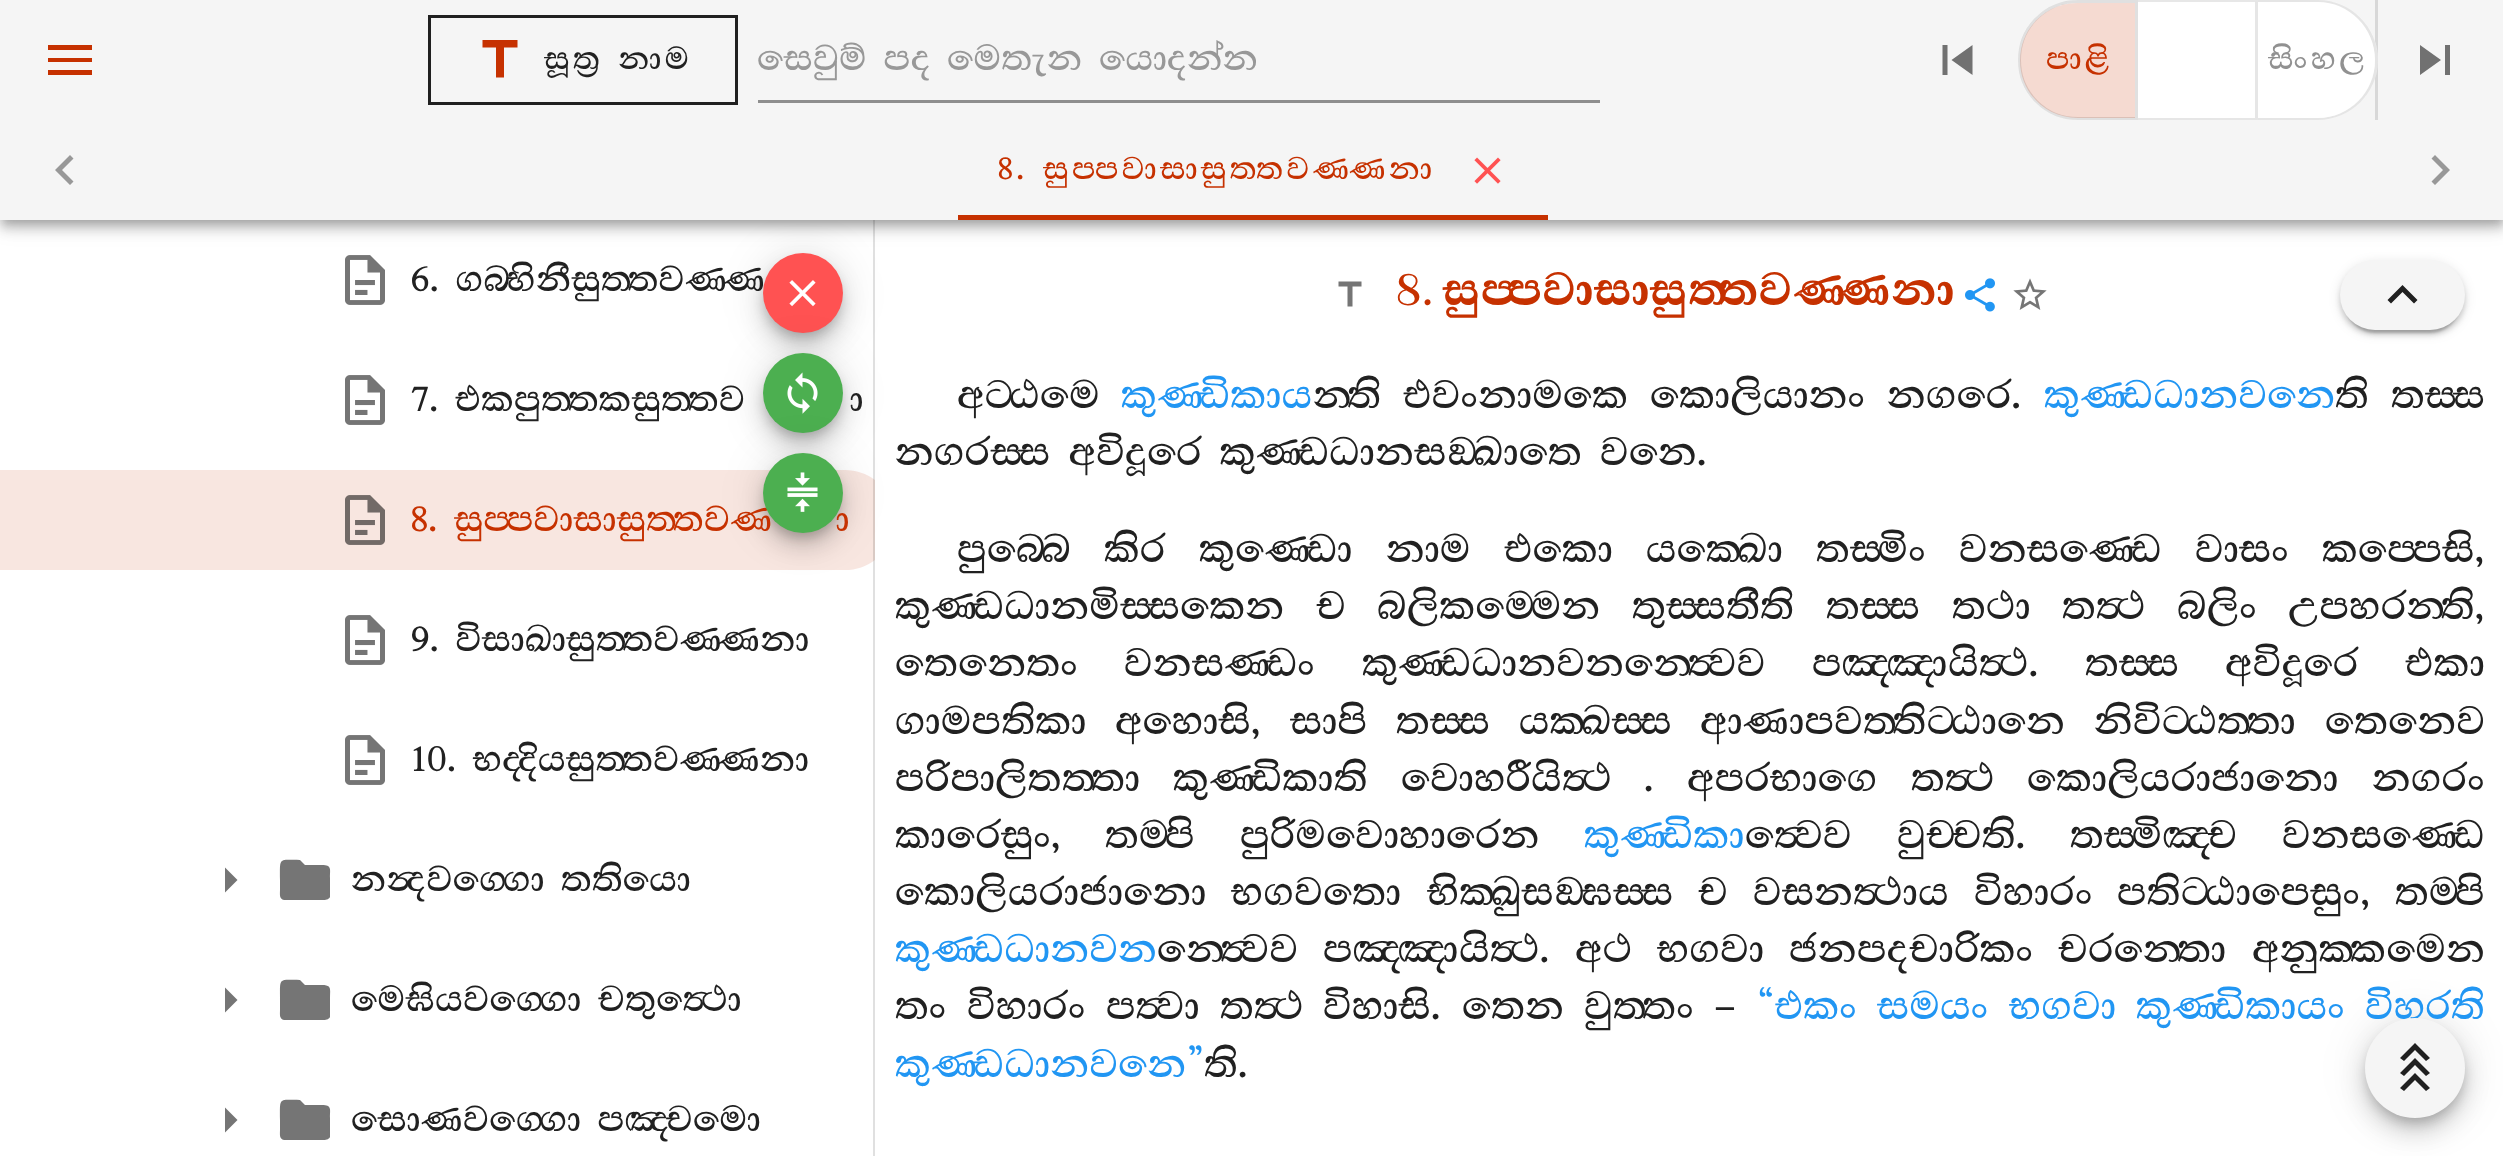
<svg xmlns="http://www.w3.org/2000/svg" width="2503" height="1156">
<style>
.a{font:300 40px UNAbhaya;fill:#212121}
.b{font:300 40px UNAbhaya;fill:#c63100}
.c{font:300 35px UNAbhaya;letter-spacing:3.1px;fill:#c63100}
.d{font:300 35px UNAbhaya;letter-spacing:3.1px;fill:#919191}
.e{font:300 40px UNAbhaya;fill:#989898}
.f{font:300 35px UNAbhaya;letter-spacing:3.1px;fill:#212121}
.g{font:600 52px Abhaya Libre;fill:#c63100}
.h{font:300 44px UNAbhaya;fill:#212121}
.i{font:300 44px UNAbhaya;fill:#2196f3}
</style>
<defs>
<clipPath id="clip1"><path d="M0 220h875v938H0z"/></clipPath>
<clipPath id="clip2"><path d="M758 38h832v45H758z"/></clipPath>
</defs>
<rect width="100%" height="100%" fill="#fff"/>
<rect fill="#0000001f" filter="blur(22.5px)" x="763" y="255" width="80" height="80" rx="40"/>
<rect fill="#00000024" filter="blur(12.5px)" x="763" y="268" width="80" height="80" rx="40"/>
<rect fill="#00000033" filter="blur(6px)" x="765" y="263" width="75" height="75" rx="37.5"/>
<rect fill="#00000033" filter="blur(6px)" x="765" y="363" width="75" height="75" rx="37.5"/>
<g clip-path="url(#clip1)">
<path fill="#c631001f" d="M0 470h845c27.5 0 50 22.5 50 50c0 27.5-22.5 50-50 50h-845z"/>
</g>
<rect fill="#00000033" filter="blur(6px)" x="765" y="463" width="75" height="75" rx="37.5"/>
<image href="5.png" x="345" y="255" width="40" height="50"/>
<image href="5.png" x="345" y="375" width="40" height="50"/>
<image href="6.png" x="345" y="495" width="40" height="50"/>
<image href="5.png" x="345" y="615" width="40" height="50"/>
<image href="5.png" x="345" y="735" width="40" height="50"/>
<path fill="#757575" d="M225 892.5l12.5-12.5l-12.5-12.5z"/>
<path fill="#757575" d="M300 860c-22 0-20-3-20 20v10c0 4-1 9 4 10h34c4 0 10 1 12-3v-19c0-9 2-13-8-13h-17z"/>
<path fill="#757575" d="M225 1012.5l12.5-12.5l-12.5-12.5z"/>
<path fill="#757575" d="M300 980c-22 0-20-3-20 20v10c0 4-1 9 4 10h34c4 0 10 1 12-3v-19c0-9 2-13-8-13h-17z"/>
<path fill="#757575" d="M225 1132.5l12.5-12.5l-12.5-12.5z"/>
<path fill="#757575" d="M300 1100c-22 0-20-3-20 20v10c0 4-1 9 4 10h34c4 0 10 1 12-3v-19c0-9 2-13-8-13h-17z"/>
<rect fill="#0000001f" filter="blur(6px)" x="2340" y="263" width="125" height="70" rx="35"/>
<rect fill="#00000024" filter="blur(2.5px)" x="2340" y="265" width="125" height="70" rx="35"/>
<rect fill="#00000033" filter="blur(1px)" x="2345" y="273" width="115" height="60" rx="30"/>
<rect fill="#f5f5f5" x="2340" y="260" width="125" height="70" rx="35"/>
<path fill="#202020" d="M2391 303.5l11.5-11.5l11.5 11.5l3.5-3.5l-15-15l-15 15z"/>
<path fill="#757575" d="M1338.5 281.5v5h9v20h5v-20h9v-5z"/>
<image href="7.png" x="1965" y="278" width="30" height="34"/>
<image href="8.png" x="2013" y="278" width="34" height="32"/>
<rect fill="#0000001f" filter="blur(22.5px)" x="2365" y="1020" width="100" height="100" rx="50"/>
<rect fill="#00000024" filter="blur(12.5px)" x="2365" y="1033" width="100" height="100" rx="50"/>
<rect fill="#00000033" filter="blur(6px)" x="2368" y="1028" width="95" height="95" rx="47.5"/>
<text class="a" x="411" y="291">6. ගබ‍්භිනීසුත‍්තවණ‍්ණ</text>
<circle fill="#ff5252" cx="803" cy="293" r="40"/>
<rect fill="#00000024" filter="blur(12.5px)" x="763" y="368" width="80" height="80" rx="40"/>
<image href="2.png" x="789" y="280" width="27" height="27"/>
<rect fill="#0000001f" filter="blur(22.5px)" x="763" y="355" width="80" height="80" rx="40"/>
<circle fill="#4caf50" cx="803" cy="393" r="40"/>
<rect fill="#00000024" filter="blur(12.5px)" x="763" y="468" width="80" height="80" rx="40"/>
<image href="3.png" x="787" y="372" width="31" height="42"/>
<rect fill="#0000001f" filter="blur(22.5px)" x="763" y="455" width="80" height="80" rx="40"/>
<text class="a" x="411" y="411">7. එකපුත‍්තකසුත‍්තව</text>
<text class="a" x="850" y="411">ා</text>
<text class="b" x="411" y="531">8. සුප‍්පවාසාසුත‍්තවණ‍්</text>
<text class="b" x="836" y="531">ා</text>
<circle fill="#4caf50" cx="803" cy="493" r="40"/>
<image href="4.png" x="787" y="472" width="31" height="40"/>
<text class="a" x="411" y="651">9. විසාඛාසුත‍්තවණ‍්ණනා</text>
<text class="a" x="411" y="771">10. භද‍්දියසුත‍්තවණ‍්ණනා</text>
<text class="a" x="351" y="891">නන්‍දවග‍්ගො තතියො</text>
<text class="a" x="351" y="1011">මෙඝියවග‍්ගො චතුත්‍ථො</text>
<text class="a" x="351" y="1131">සොණවග‍්ගො පඤ‍්චමො</text>
<path fill="#0000001f" d="M873 220h2v936H873z"/>
<path fill="#00000033" filter="blur(5px)" d="M3 8h2500v215H3z"/>
<path fill="#00000024" filter="blur(6px)" d="M0 10h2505v220H0z"/>
<path fill="#0000001f" filter="blur(12.5px)" d="M0 3h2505v220H0z"/>
<path fill="#f5f5f5" d="M0 0h2503v220H0z"/>
<path fill="#989898" d="M2431.5 181.5l11.5-11.5l-11.5-11.5l3.5-3.5l15 15l-15 15z"/>
<path fill="#c63100" d="M958 215h590v5H958z"/>
<image href="1.png" x="1474" y="157" width="27" height="27"/>
<text class="c" x="998" y="179" word-spacing="-2">8. සුප‍්පවාසාසුත‍්තවණ‍්ණනා</text>
<path fill="#989898" d="M73.5 181.5l-11.5-11.5l11.5-11.5l-3.5-3.5l-15 15l15 15z"/>
<path fill="#717171" d="M2445 75h5v-30h-5zm-25 0l21-15l-21-15z"/>
<path fill="#d8d8d8" d="M2375 0h3v120H2375z"/>
<rect fill="#fff" x="2018" width="360" height="120" rx="60"/>
<path fill="#0000001a" fill-rule="evenodd" d="M2258 0h60c33 0 60 27 60 60c0 33-27 60-60 60h-60zm0 2h60c31 0 57 26 57 58c0 32-26 58-57 58h-60z"/>
<path fill="#ffffff8a" d="M2258 3h59.5c32 0 57.5 25.5 57.5 57.5c0 32-25.5 57.5-57.5 57.5h-59.5z"/>
<path fill="#e7e7e7" d="M2138 0h120l-3 2h-117z"/>
<path fill="#3333331f" d="M2258 0v120l-3-2v-116z"/>
<text class="d" x="2268" y="69">සිංහල</text>
<path fill="#3333331f" d="M2258 120h-120v-2h117z"/>
<path fill="none" stroke="#0000001f" stroke-width="3" d="M2078 1.5h58.5v117h-58.5c-32.5 0-58.5-26-58.5-58.5c0-32.5 26-58.5 58.5-58.5z"/>
<path fill="#c631002e" d="M2077.5 3h57.5v115h-57.5c-32 0-57.5-25.5-57.5-57.5c0-32 25.5-57.5 57.5-57.5z"/>
<text class="c" x="2046" y="69">පාළි</text>
<path fill="#717171" d="M1942.5 75v-30h5v30zm9-15l21-15v30z"/>
<g clip-path="url(#clip2)">
<text class="e" x="757" y="70">සෙවුම් පද මෙතැන යොදන්න</text>
</g>
<path fill="#8e8e8e" d="M758 100h842v3H758z"/>
<path fill="none" stroke="#202020" stroke-width="3" d="M429.5 16.5h307v87H429.5z"/>
<path fill="#c63100" d="M482.5 40v7.5h13.5v30h8v-30h13.5v-7.5z"/>
<text class="f" x="544" y="69" word-spacing="-2">සූත්‍ර නාම</text>
<path fill="#c63100" d="M48 45h44v5h-44zm0 13h44v4h-44zm0 12h44v5h-44z"/>
<text class="g" x="1395" y="305">8. සුප‍්පවාසාසුත‍්තවණ‍්ණනා</text>
<text class="h" x="957" y="408">අට‍්ඨමෙ</text>
<text class="i" x="1121" y="408">කුණ‍්ඩිකාය</text>
<text class="h" x="1313" y="408">න‍්ති</text>
<text class="h" x="1403" y="408">එවංනාමකෙ</text>
<text class="h" x="1650" y="408">කොලියානං</text>
<text class="h" x="1887" y="408">නගරෙ.</text>
<text class="i" x="2044" y="408">කුණ‍්ඩධානවනෙ</text>
<text class="h" x="2335" y="408">ති</text>
<text class="h" x="2391" y="408">තස‍්ස</text>
<text class="h" x="895" y="465">නගරස‍්ස අවිදූරෙ කුණ‍්ඩධානසඞ‍්ඛාතෙ වනෙ.</text>
<text class="h" x="957" y="562">පුබ‍්බෙ</text>
<text class="h" x="1104" y="562">කිර</text>
<text class="h" x="1199" y="562">කුණ‍්ඩො</text>
<text class="h" x="1386" y="562">නාම</text>
<text class="h" x="1504" y="562">එකො</text>
<text class="h" x="1646" y="562">යක‍්ඛො</text>
<text class="h" x="1816" y="562">තස‍්මිං</text>
<text class="h" x="1959" y="562">වනසණ‍්ඩෙ</text>
<text class="h" x="2195" y="562">වාසං</text>
<text class="h" x="2322" y="562">කප‍්පෙසි,</text>
<text class="h" x="895" y="619">කුණ‍්ඩධානමිස‍්සකෙන</text>
<text class="h" x="1316" y="619">ච</text>
<text class="h" x="1377" y="619">බලිකම‍්මෙන</text>
<text class="h" x="1632" y="619">තුස‍්සතීති</text>
<text class="h" x="1826" y="619">තස‍්ස</text>
<text class="h" x="1952" y="619">තථා</text>
<text class="h" x="2062" y="619">තත්‍ථ</text>
<text class="h" x="2177" y="619">බලිං</text>
<text class="h" x="2288" y="619">උපහරන‍්ති,</text>
<text class="h" x="895" y="676">තෙනෙතං</text>
<text class="h" x="1124" y="676">වනසණ‍්ඩං</text>
<text class="h" x="1362" y="676">කුණ‍්ඩධානවනන‍්ත්‍වෙව</text>
<text class="h" x="1812" y="676">පඤ‍්ඤායිත්‍ථ.</text>
<text class="h" x="2085" y="676">තස‍්ස</text>
<text class="h" x="2225" y="676">අවිදූරෙ</text>
<text class="h" x="2405" y="676">එකා</text>
<text class="h" x="895" y="734">ගාමපතිකා</text>
<text class="h" x="1115" y="734">අහොසි,</text>
<text class="h" x="1290" y="734">සාපි</text>
<text class="h" x="1396" y="734">තස‍්ස</text>
<text class="h" x="1519" y="734">යක‍්ඛස‍්ස</text>
<text class="h" x="1700" y="734">ආණාපවත‍්තිට‍්ඨානෙ</text>
<text class="h" x="2094" y="734">නිවිට‍්ඨත‍්තා</text>
<text class="h" x="2325" y="734">තෙනෙව</text>
<text class="h" x="895" y="791">පරිපාලිතත‍්තා</text>
<text class="h" x="1173" y="791">කුණ‍්ඩිකාති</text>
<text class="h" x="1401" y="791">වොහරීයිත්‍ථ</text>
<text class="h" x="1644" y="791">.</text>
<text class="h" x="1687" y="791">අපරභාගෙ</text>
<text class="h" x="1911" y="791">තත්‍ථ</text>
<text class="h" x="2027" y="791">කොලියරාජානො</text>
<text class="h" x="2372" y="791">නගරං</text>
<text class="h" x="895" y="848">කාරෙසුං,</text>
<text class="h" x="1105" y="848">තම‍්පි</text>
<text class="h" x="1240" y="848">පුරිමවොහාරෙන</text>
<text class="i" x="1584" y="848">කුණ‍්ඩිකා</text>
<text class="h" x="1745" y="848">ත්‍වෙව</text>
<text class="h" x="1897" y="848">වුච‍්චති.</text>
<text class="h" x="2070" y="848">තස‍්මිඤ‍්ච</text>
<text class="h" x="2282" y="848">වනසණ‍්ඩෙ</text>
<text class="h" x="895" y="905">කොලියරාජානො</text>
<text class="h" x="1231" y="905">භගවතො</text>
<text class="h" x="1427" y="905">භික‍්ඛුසඞ‍්ඝස‍්ස</text>
<text class="h" x="1698" y="905">ච</text>
<text class="h" x="1753" y="905">වසනත්‍ථාය</text>
<text class="h" x="1974" y="905">විහාරං</text>
<text class="h" x="2117" y="905">පතිට‍්ඨාපෙසුං,</text>
<text class="h" x="2395" y="905">තම‍්පි</text>
<text class="i" x="895" y="962">කුණ‍්ඩධානවන</text>
<text class="h" x="1157" y="962">න‍්ත්‍වෙව</text>
<text class="h" x="1323" y="962">පඤ‍්ඤායිත්‍ථ.</text>
<text class="h" x="1575" y="962">අථ</text>
<text class="h" x="1657" y="962">භගවා</text>
<text class="h" x="1789" y="962">ජනපදචාරිකං</text>
<text class="h" x="2058" y="962">චරන‍්තො</text>
<text class="h" x="2252" y="962">අනුක‍්කමෙන</text>
<text class="h" x="895" y="1019">තං</text>
<text class="h" x="967" y="1019">විහාරං</text>
<text class="h" x="1106" y="1019">පත්‍වා</text>
<text class="h" x="1220" y="1019">තත්‍ථ</text>
<text class="h" x="1323" y="1019">විහාසි.</text>
<text class="h" x="1462" y="1019">තෙන</text>
<text class="h" x="1584" y="1019">වුත‍්තං</text>
<text class="h" x="1714" y="1019">–</text>
<text class="i" x="1757" y="1019">“එකං</text>
<text class="i" x="1877" y="1019">සමයං</text>
<text class="i" x="2009" y="1019">භගවා</text>
<text class="i" x="2136" y="1019">කුණ‍්ඩිකායං</text>
<text class="i" x="2365" y="1019">විහරති</text>
<text class="i" x="895" y="1077">කුණ‍්ඩධානවනෙ”</text>
<text class="h" x="1204" y="1077">ති.</text>
<circle fill="#f5f5f5" cx="2415" cy="1068" r="50"/>
<path fill="#202020" d="M2426 1061l-11-11l-11 11l-4-3l15-15l15 15zm0 15l-11-11l-11 11l-4-3l15-15l15 15zm0 15l-11-11l-11 11l-4-3l15-15l15 15z"/>
</svg>
